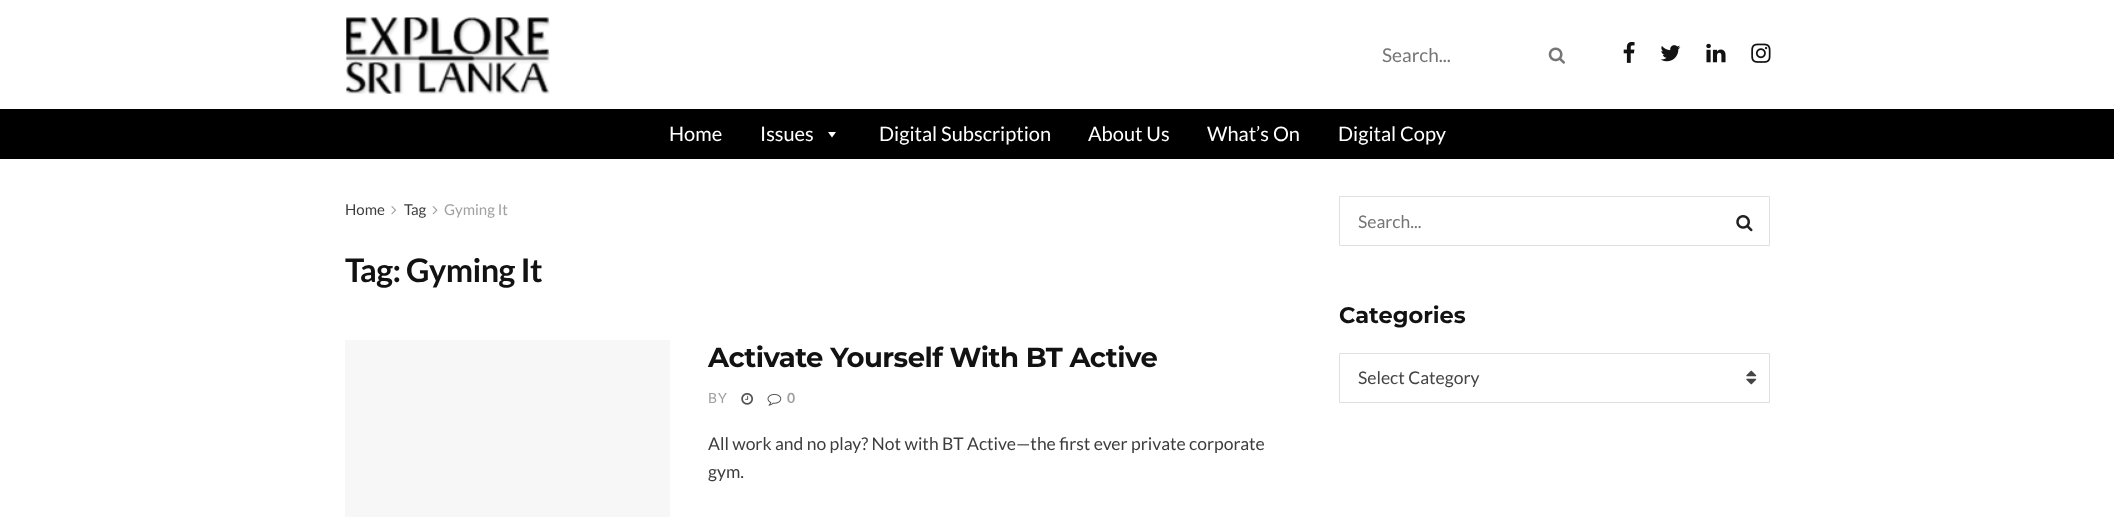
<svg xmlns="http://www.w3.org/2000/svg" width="2114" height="517">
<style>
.a{font:19px Lato;fill:#757575}
.b{font:20px Lato;fill:#fff}
.c{font:15px Lato;fill:#3d3d3d}
.d{font:15px Lato;fill:#a0a0a0}
.e{font:bold 32.5px Lato;letter-spacing:-0.6px;fill:#121212}
.f{font:bold 27.5px Montserrat;letter-spacing:-0.55px;fill:#121212}
.g{font:14px Lato;letter-spacing:1px;fill:#a0a0a0}
.h{font:bold 14px Lato;letter-spacing:1px;fill:#a0a0a0}
.i{font:17.5px Lato;fill:#3d3d3d}
.j{font:17.5px Lato;fill:#757575}
.k{font:bold 22.5px Montserrat;fill:#121212}
.l{font:17.5px Lato;fill:#444}
</style>
<rect width="100%" height="100%" fill="#fff"/>
<image href="1.png" x="346" y="17" width="204" height="77"/>
<image href="2.png" x="1548" y="47" width="17" height="17"/>
<image href="3.png" x="1623" y="42" width="12" height="21"/>
<image href="4.png" x="1660" y="45" width="21" height="17"/>
<image href="5.png" x="1706" y="43" width="20" height="20"/>
<image href="6.png" x="1751" y="43" width="20" height="20"/>
<path fill="#000" d="M0 109h2114v50H0z"/>
<path fill="#fff" d="M836 132l-4 5.5l-4-5.5z"/>
<image href="7.png" x="391" y="206" width="6" height="9"/>
<image href="8.png" x="432" y="206" width="6" height="9"/>
<path fill="#f7f7f7" d="M345 340h325v177H345z"/>
<image href="9.png" x="741" y="393" width="12" height="12"/>
<image href="10.png" x="767" y="393" width="15" height="13"/>
<path fill="none" stroke="#e0e0e0" d="M1339.5 196.5h430v49H1339.5z"/>
<image href="11.png" x="1736" y="215" width="17" height="17"/>
<path fill="none" stroke="#e0e0e0" d="M1339.5 353.5h430v49H1339.5z"/>
<image href="12.png" x="1746" y="370" width="11" height="15"/>
<text class="a" x="1382" y="62">Search...</text>
<text class="b" x="669" y="141">Home</text>
<text class="b" x="760" y="141">Issues</text>
<text class="b" x="879" y="141">Digital Subscription</text>
<text class="b" x="1088" y="141">About Us</text>
<text class="b" x="1207" y="141">What’s On</text>
<text class="b" x="1338" y="141">Digital Copy</text>
<text class="c" x="345" y="215">Home</text>
<text class="c" x="404" y="215">Tag</text>
<text class="d" x="444" y="215">Gyming It</text>
<text class="e" x="345" y="282">Tag: Gyming It</text>
<text class="f" x="708" y="367">Activate Yourself With BT Active</text>
<text class="g" x="708" y="403">BY</text>
<text class="h" x="787" y="403">0</text>
<text class="i" x="708" y="450">All work and no play? Not with BT Active—the first ever private corporate</text>
<text class="i" x="708" y="478">gym.</text>
<text class="j" x="1358" y="228">Search...</text>
<text class="k" x="1339" y="323">Categories</text>
<text class="l" x="1358" y="384">Select Category</text>
</svg>
